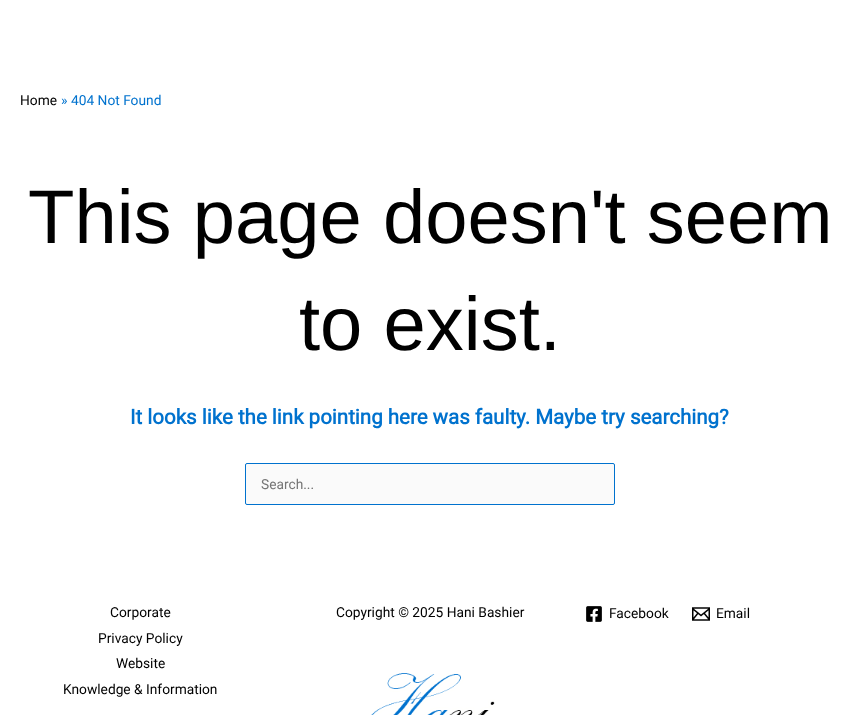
<svg xmlns="http://www.w3.org/2000/svg" width="860" height="715">
<style>
.a{font:13.75px Roboto;fill:#000}
.b{font:13.75px Roboto;fill:#0072ce}
.c{font:76px Liberation Sans;fill:#000}
.d{font:bold 20.5px Roboto;fill:#0072ce}
.e{font:13.75px Roboto;fill:#757575}
</style>
<rect width="100%" height="100%" fill="#fff"/>
<rect fill="#fafafa" stroke="#0072ce" x="245.5" y="463.5" width="369" height="41" rx="1.5"/>
<image href="1.png" x="371" y="673" width="124" height="42"/>
<image href="2.png" x="586" y="606" width="16" height="16"/>
<image href="3.png" x="692" y="607" width="18" height="14"/>
<text class="a" x="20" y="105">Home</text>
<text class="b" x="61" y="105">»</text>
<text class="b" x="71" y="105">404 Not Found</text>
<text class="c" x="28" y="243">This page doesn't seem</text>
<text class="c" x="299" y="350">to exist.</text>
<text class="d" x="130" y="424">It looks like the link pointing here was faulty. Maybe try searching?</text>
<text class="e" x="261" y="489">Search...</text>
<text class="a" x="110" y="617">Corporate</text>
<text class="a" x="98" y="643">Privacy Policy</text>
<text class="a" x="116" y="668">Website</text>
<text class="a" x="63" y="694">Knowledge &amp; Information</text>
<text class="a" x="336" y="617">Copyright © 2025 Hani Bashier</text>
<text class="a" x="609" y="618">Facebook</text>
<text class="a" x="716" y="618">Email</text>
</svg>
